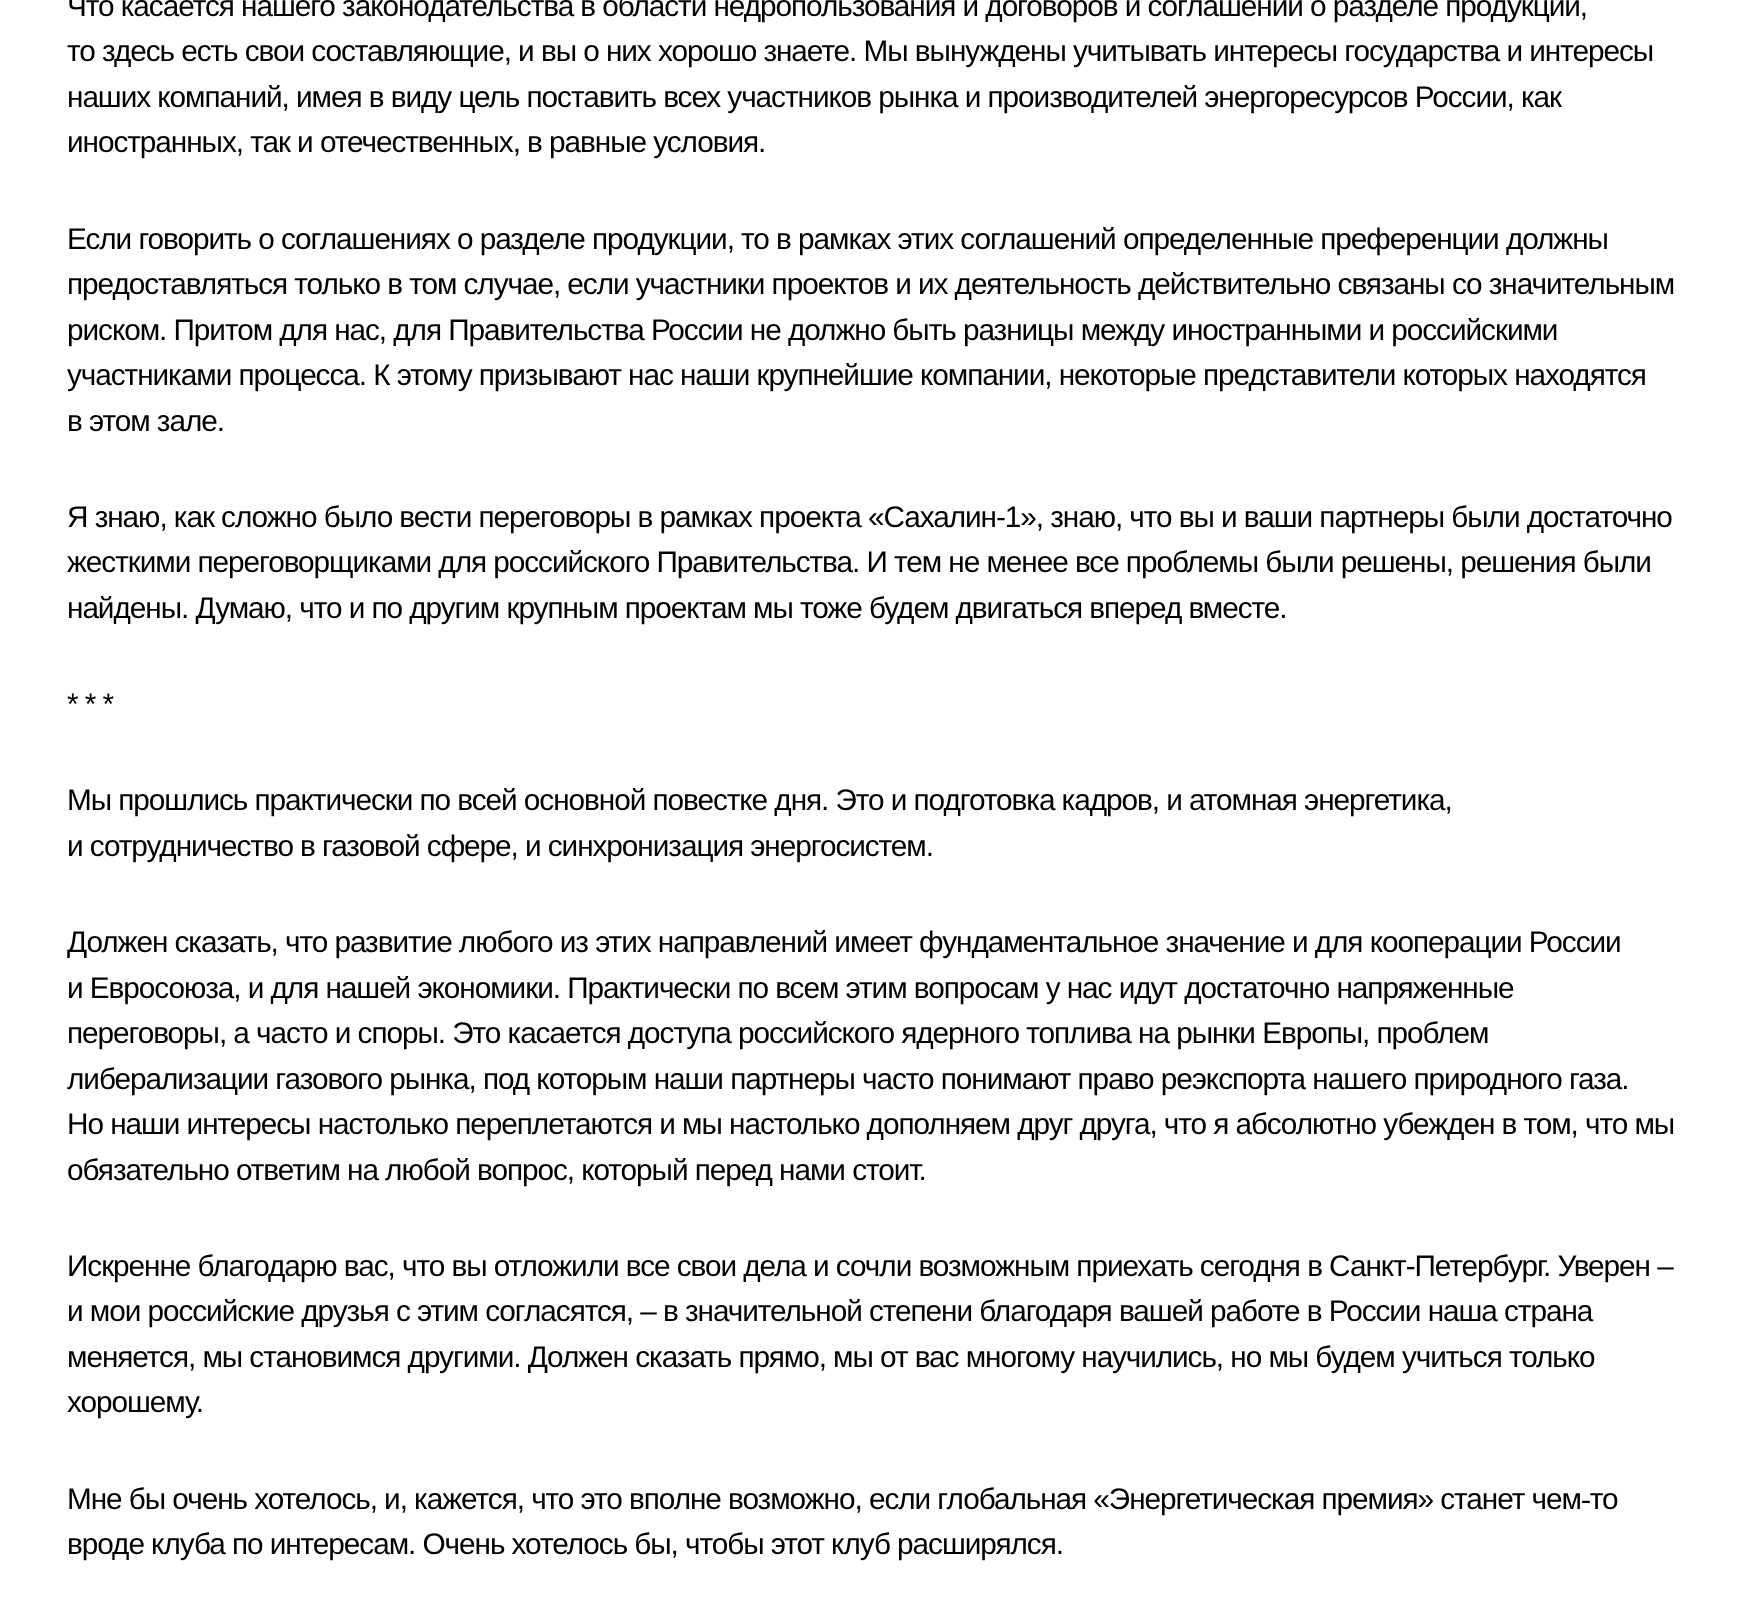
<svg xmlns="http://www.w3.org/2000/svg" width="1745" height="1600">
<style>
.a{font:29.75px Liberation Sans;letter-spacing:-1.05px;fill:#000}
</style>
<rect width="100%" height="100%" fill="#fff"/>
<text class="a" x="67" y="16">Что касается нашего законодательства в области недропользования и договоров и соглашений о разделе продукции,</text>
<text class="a" x="67" y="61">то здесь есть свои составляющие, и вы о них хорошо знаете. Мы вынуждены учитывать интересы государства и интересы</text>
<text class="a" x="67" y="107">наших компаний, имея в виду цель поставить всех участников рынка и производителей энергоресурсов России, как</text>
<text class="a" x="67" y="152">иностранных, так и отечественных, в равные условия.</text>
<text class="a" x="67" y="249">Если говорить о соглашениях о разделе продукции, то в рамках этих соглашений определенные преференции должны</text>
<text class="a" x="67" y="294">предоставляться только в том случае, если участники проектов и их деятельность действительно связаны со значительным</text>
<text class="a" x="67" y="340">риском. Притом для нас, для Правительства России не должно быть разницы между иностранными и российскими</text>
<text class="a" x="67" y="385">участниками процесса. К этому призывают нас наши крупнейшие компании, некоторые представители которых находятся</text>
<text class="a" x="67" y="431">в этом зале.</text>
<text class="a" x="67" y="527">Я знаю, как сложно было вести переговоры в рамках проекта «Сахалин-1», знаю, что вы и ваши партнеры были достаточно</text>
<text class="a" x="67" y="572">жесткими переговорщиками для российского Правительства. И тем не менее все проблемы были решены, решения были</text>
<text class="a" x="67" y="618">найдены. Думаю, что и по другим крупным проектам мы тоже будем двигаться вперед вместе.</text>
<text class="a" x="67" y="714">* * *</text>
<text class="a" x="67" y="810">Мы прошлись практически по всей основной повестке дня. Это и подготовка кадров, и атомная энергетика,</text>
<text class="a" x="67" y="856">и сотрудничество в газовой сфере, и синхронизация энергосистем.</text>
<text class="a" x="67" y="952">Должен сказать, что развитие любого из этих направлений имеет фундаментальное значение и для кооперации России</text>
<text class="a" x="67" y="998">и Евросоюза, и для нашей экономики. Практически по всем этим вопросам у нас идут достаточно напряженные</text>
<text class="a" x="67" y="1043">переговоры, а часто и споры. Это касается доступа российского ядерного топлива на рынки Европы, проблем</text>
<text class="a" x="67" y="1089">либерализации газового рынка, под которым наши партнеры часто понимают право реэкспорта нашего природного газа.</text>
<text class="a" x="67" y="1134">Но наши интересы настолько переплетаются и мы настолько дополняем друг друга, что я абсолютно убежден в том, что мы</text>
<text class="a" x="67" y="1180">обязательно ответим на любой вопрос, который перед нами стоит.</text>
<text class="a" x="67" y="1276">Искренне благодарю вас, что вы отложили все свои дела и сочли возможным приехать сегодня в Санкт-Петербург. Уверен –</text>
<text class="a" x="67" y="1321">и мои российские друзья с этим согласятся, – в значительной степени благодаря вашей работе в России наша страна</text>
<text class="a" x="67" y="1367">меняется, мы становимся другими. Должен сказать прямо, мы от вас многому научились, но мы будем учиться только</text>
<text class="a" x="67" y="1412">хорошему.</text>
<text class="a" x="67" y="1509">Мне бы очень хотелось, и, кажется, что это вполне возможно, если глобальная «Энергетическая премия» станет чем‑то</text>
<text class="a" x="67" y="1554">вроде клуба по интересам. Очень хотелось бы, чтобы этот клуб расширялся.</text>
</svg>
